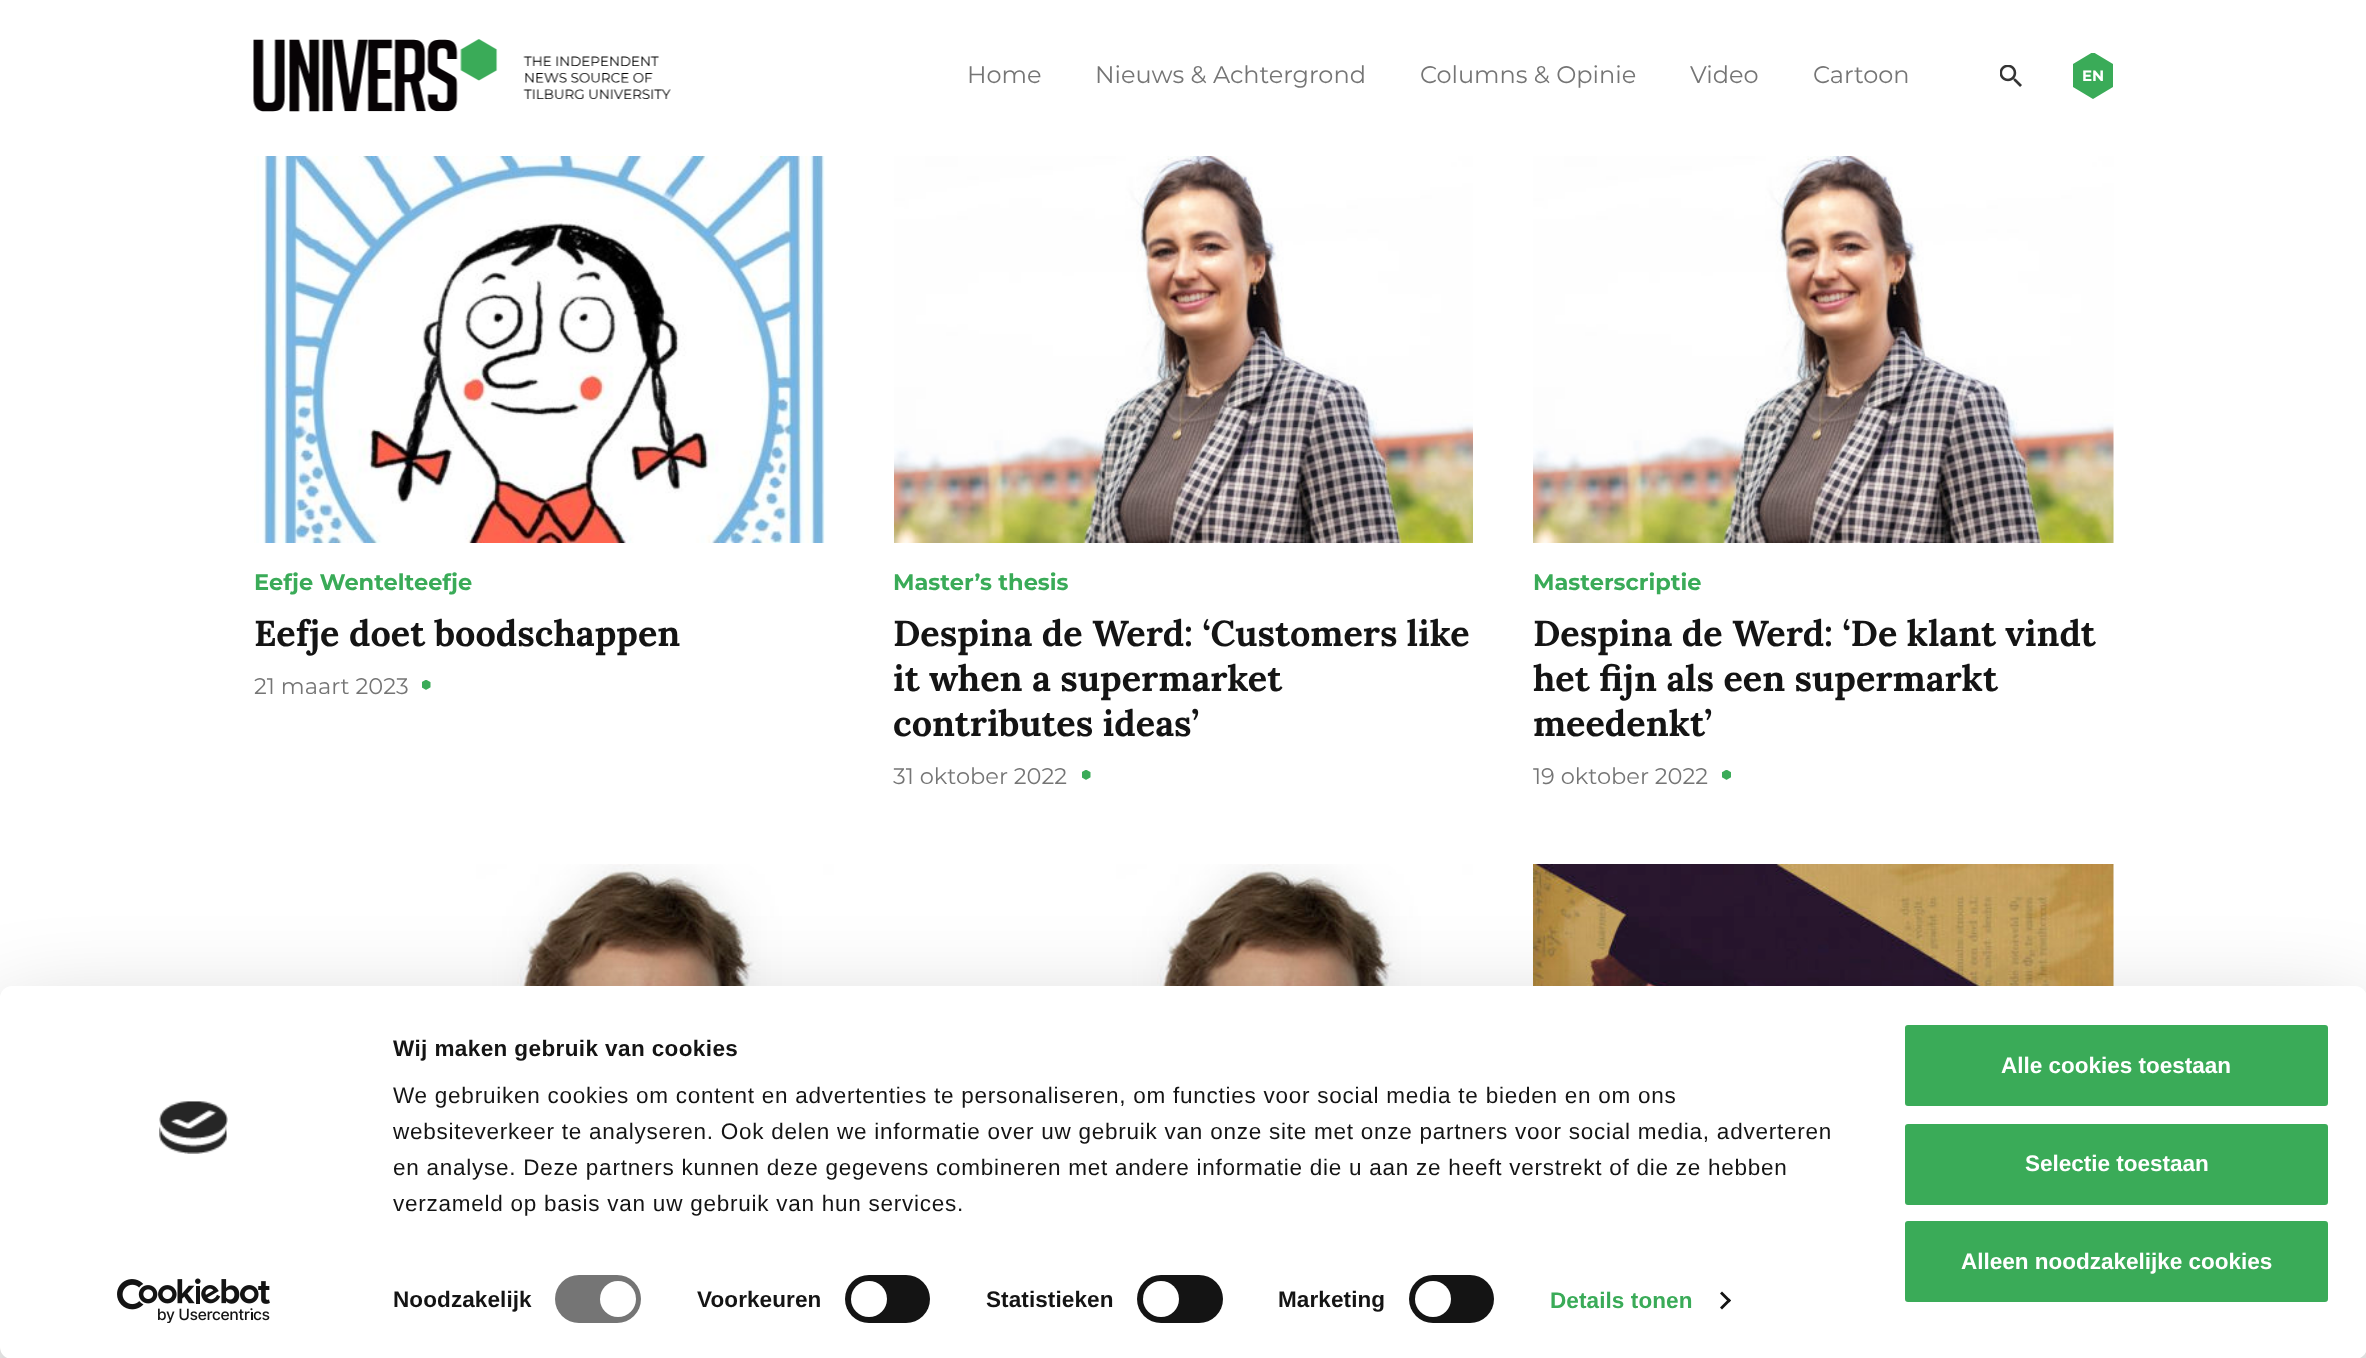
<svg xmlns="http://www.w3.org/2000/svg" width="2366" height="1358">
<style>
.a{font:24px Montserrat;fill:#757575}
.b{font:bold 15px Montserrat;fill:#fff}
.c{font:bold 22.5px Montserrat;fill:#3aab58}
.d{font:bold 36px Lora;fill:#141414}
.e{font:22.5px Montserrat;fill:#757575}
.f{font:bold 22.5px Liberation Sans;letter-spacing:0.4px;fill:#141414}
.g{font:22.5px Liberation Sans;letter-spacing:0.75px;fill:#141414}
.h{font:bold 22.5px Liberation Sans;letter-spacing:0.1px;fill:#141414}
.i{font:bold 22.5px Liberation Sans;letter-spacing:0.1px;fill:#3aab58}
.j{font:bold 22.5px Liberation Sans;fill:#fff}
</style>
<defs>
<clipPath id="clip1"><path d="M2073 53h41v46H2073z"/></clipPath>
</defs>
<rect width="100%" height="100%" fill="#fff"/>
<image href="1.png" x="253" y="39" width="418" height="73"/>
<image href="2.png" x="2000" y="65" width="22" height="22"/>
<g clip-path="url(#clip1)">
<path fill="#3aab58" d="M2093 52l-20 12v23l20 12l20-12v-23z"/>
</g>
<image href="3.png" x="254" y="156" width="571" height="387"/>
<image href="4.png" x="422" y="680" width="9" height="10"/>
<image href="5.png" x="894" y="156" width="579" height="387"/>
<image href="4.png" x="1082" y="770" width="9" height="10"/>
<image href="6.png" x="1533" y="156" width="581" height="387"/>
<image href="7.png" x="1722" y="770" width="9" height="10"/>
<image href="8.png" x="476" y="864" width="358" height="122"/>
<image href="9.png" x="1116" y="864" width="357" height="122"/>
<image href="10.png" x="1533" y="864" width="581" height="122"/>
<rect fill="#0000004d" filter="blur(52.5px)" y="1031" width="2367" height="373" rx="12"/>
<rect fill="#fff" y="986" width="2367" height="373" rx="12"/>
<image href="11.png" x="159" y="1101" width="69" height="53"/>
<image href="12.png" x="117" y="1278" width="153" height="45"/>
<rect fill="#757575" x="555" y="1275" width="86" height="48" rx="24"/>
<circle fill="#fff" cx="618" cy="1299" r="18"/>
<rect fill="#141414" x="845" y="1275" width="85" height="48" rx="24"/>
<circle fill="#fff" cx="869" cy="1299" r="18"/>
<rect fill="#141414" x="1137" y="1275" width="86" height="48" rx="24"/>
<circle fill="#fff" cx="1161" cy="1299" r="18"/>
<rect fill="#141414" x="1409" y="1275" width="85" height="48" rx="24"/>
<circle fill="#fff" cx="1433" cy="1299" r="18"/>
<path fill="#141414" d="M1722 1291.5l9 9l-2 2l-9-9z"/>
<path fill="#141414" d="M1729 1298.5l2 2l-9 9l-2-2z"/>
<rect fill="#3aab58" stroke="#fff" stroke-width="3" x="1903.5" y="1023.5" width="426" height="84" rx="4.5"/>
<rect fill="#3aab58" stroke="#fff" stroke-width="3" x="1903.5" y="1122.5" width="426" height="84" rx="4.5"/>
<rect fill="#3aab58" stroke="#fff" stroke-width="3" x="1903.5" y="1219.5" width="426" height="84" rx="4.5"/>
<text class="a" x="967" y="83">Home</text>
<text class="a" x="1095" y="83">Nieuws &amp; Achtergrond</text>
<text class="a" x="1420" y="83">Columns &amp; Opinie</text>
<text class="a" x="1690" y="83">Video</text>
<text class="a" x="1813" y="83">Cartoon</text>
<text class="b" x="2082" y="81">EN</text>
<text class="c" x="254" y="590">Eefje Wentelteefje</text>
<text class="d" x="254" y="646">Eefje doet boodschappen</text>
<text class="e" x="254" y="694">21 maart 2023</text>
<text class="c" x="893" y="590">Master’s thesis</text>
<text class="d" x="893" y="646">Despina de Werd: ‘Customers like</text>
<text class="d" x="893" y="691">it when a supermarket</text>
<text class="d" x="893" y="736">contributes ideas’</text>
<text class="e" x="893" y="784">31 oktober 2022</text>
<text class="c" x="1533" y="590">Masterscriptie</text>
<text class="d" x="1533" y="646">Despina de Werd: ‘De klant vindt</text>
<text class="d" x="1533" y="691">het fijn als een supermarkt</text>
<text class="d" x="1533" y="736">meedenkt’</text>
<text class="e" x="1533" y="784">19 oktober 2022</text>
<text class="f" x="393" y="1056">Wij maken gebruik van cookies</text>
<text class="g" x="393" y="1103">We gebruiken cookies om content en advertenties te personaliseren, om functies voor social media te bieden en om ons</text>
<text class="g" x="393" y="1139">websiteverkeer te analyseren. Ook delen we informatie over uw gebruik van onze site met onze partners voor social media, adverteren</text>
<text class="g" x="393" y="1175">en analyse. Deze partners kunnen deze gegevens combineren met andere informatie die u aan ze heeft verstrekt of die ze hebben</text>
<text class="g" x="393" y="1211">verzameld op basis van uw gebruik van hun services.</text>
<text class="h" x="393" y="1307">Noodzakelijk</text>
<text class="h" x="697" y="1307">Voorkeuren</text>
<text class="h" x="986" y="1307">Statistieken</text>
<text class="h" x="1278" y="1307">Marketing</text>
<text class="i" x="1550" y="1308">Details tonen</text>
<text class="j" x="2001" y="1073">Alle cookies toestaan</text>
<text class="j" x="2025" y="1171">Selectie toestaan</text>
<text class="j" x="1961" y="1269">Alleen noodzakelijke cookies</text>
</svg>
